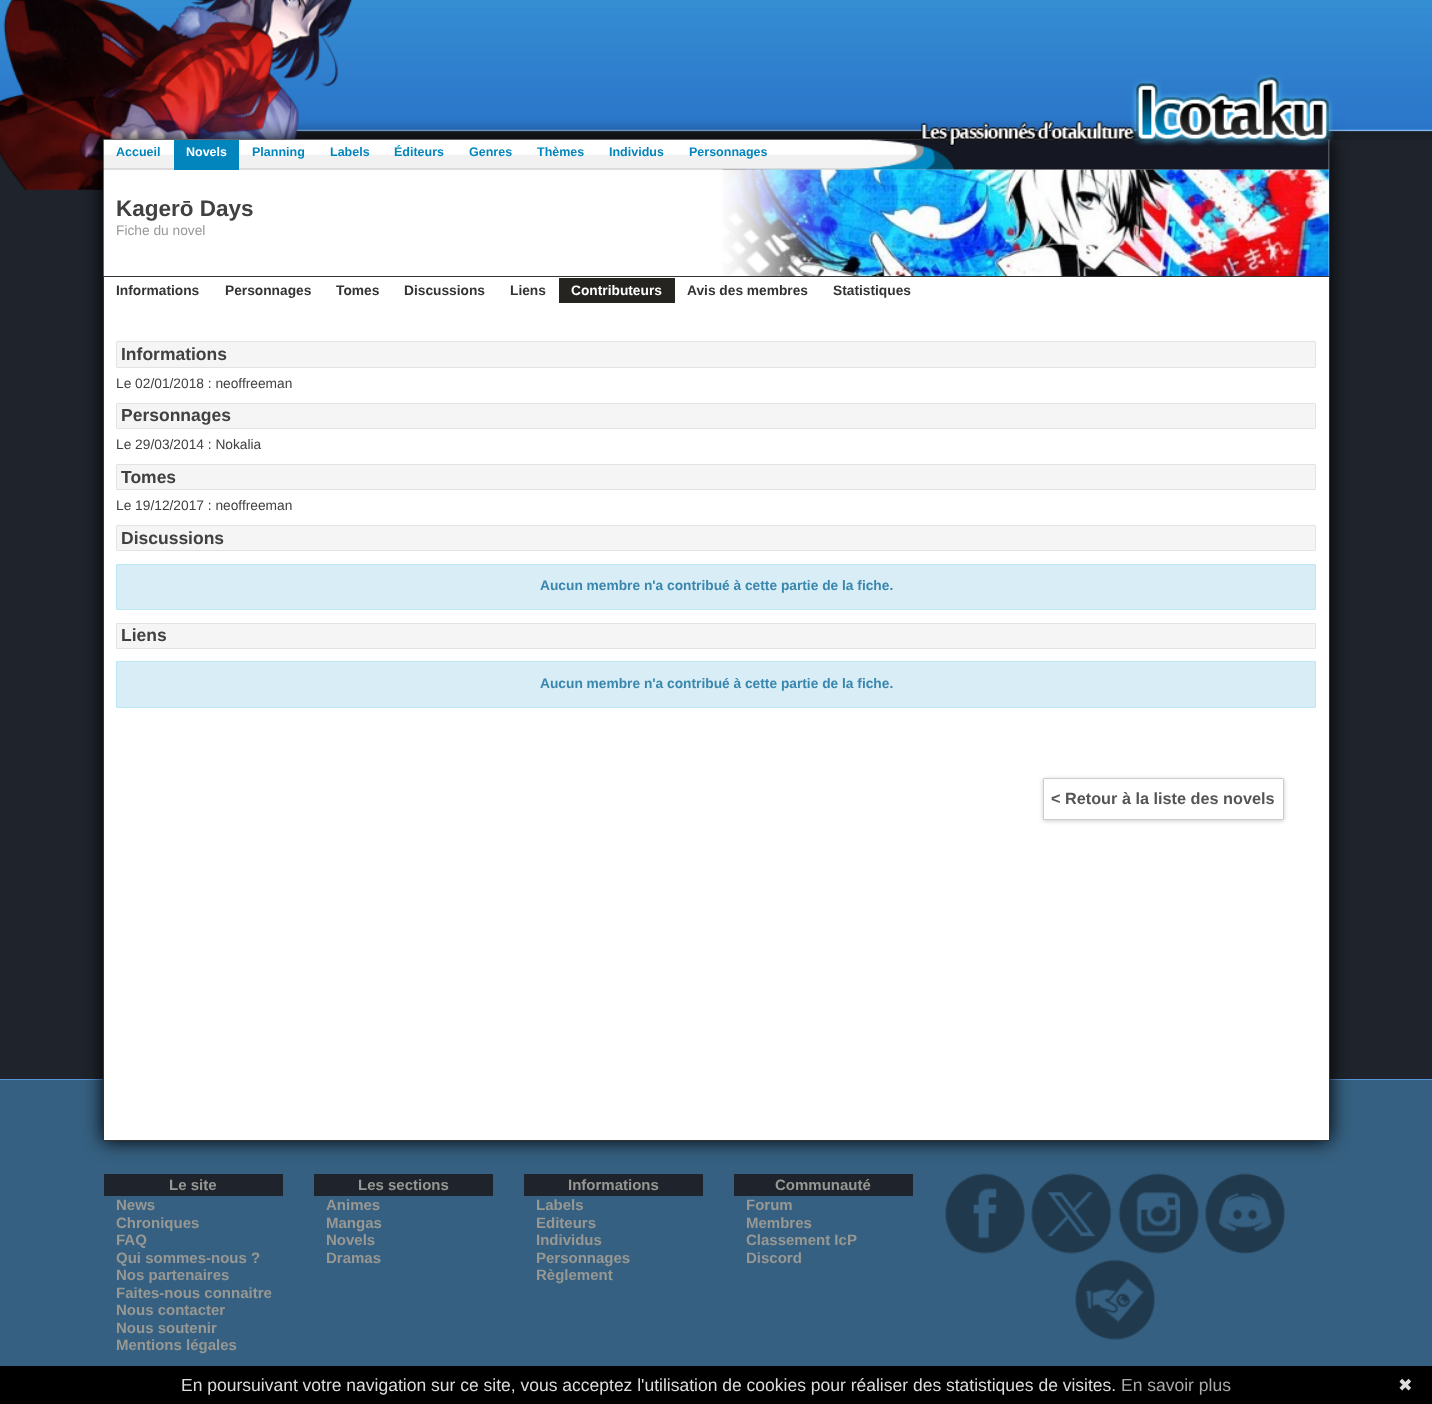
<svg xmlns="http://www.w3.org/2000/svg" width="1432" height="1404">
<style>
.a{font:bold 12.5px Liberation Sans;fill:#0285bd}
.b{font:bold 12.5px Liberation Sans;fill:#fff}
.c{font:bold 22.5px Liberation Sans;fill:#414141}
.d{font:13.75px Liberation Sans;fill:#999}
.e{font:bold 13.75px Liberation Sans;fill:#333}
.f{font:bold 13.75px Liberation Sans;fill:#fff}
.g{font:bold 17.5px Liberation Sans;fill:#414141}
.h{font:13.75px Liberation Sans;fill:#414141}
.i{font:bold 13.75px Liberation Sans;fill:#3a87ad}
.j{font:bold 16.25px Liberation Sans;fill:#555}
.k{font:bold 15px Liberation Sans;fill:#979893}
.l{font:17.5px Liberation Sans;fill:#ddd}
.m{font:17.5px Liberation Sans;fill:#aaa}
.n{font:17.5px DejaVu Sans;fill:#ddd}
</style>
<defs>
<clipPath id="clip1"><path d="M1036 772h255v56h-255zm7 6h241v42h-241z" clip-rule="evenodd"/></clipPath>
</defs>
<rect width="100%" height="100%" fill="#1f242c"/>
<image href="1.png" x="0" y="0" width="1432" height="140"/>
<image href="2.png" x="0" y="0" width="353" height="190"/>
<path fill="#366081" d="M0 1080h1432v286H0z"/>
<path fill="#5796db" d="M0 1079h1432v1H0z"/>
<path fill="#000" filter="blur(9.5px)" d="M103 139h1227v1002H103z"/>
<path fill="#fff" stroke="#333" d="M103.5 139.5h1226v1001H103.5z"/>
<image href="4.png" x="103" y="139" width="1226" height="31"/>
<image href="3.png" x="921" y="74" width="413" height="73"/>
<image href="5.png" x="722" y="169" width="607" height="107"/>
<image href="6.png" x="103" y="169" width="742" height="107"/>
<path fill="#0285bd" d="M174 140h65v30H174z"/>
<path fill="#333" d="M104 276h1225v1H104z"/>
<path fill="#252420" d="M559 278h116v25H559z"/>
<rect fill="#f5f5f5" stroke="#e2e2e2" x="116.5" y="341.5" width="1199" height="26" rx="0.5"/>
<rect fill="#f5f5f5" stroke="#e2e2e2" x="116.5" y="403.5" width="1199" height="25" rx="0.5"/>
<rect fill="#f5f5f5" stroke="#e2e2e2" x="116.5" y="464.5" width="1199" height="25" rx="0.5"/>
<rect fill="#f5f5f5" stroke="#e2e2e2" x="116.5" y="525.5" width="1199" height="25" rx="0.5"/>
<path fill="#d9edf7" stroke="#bce8f1" d="M116.5 564.5h1199v45H116.5z"/>
<rect fill="#f5f5f5" stroke="#e2e2e2" x="116.5" y="623.5" width="1199" height="25" rx="0.5"/>
<path fill="#d9edf7" stroke="#bce8f1" d="M116.5 661.5h1199v46H116.5z"/>
<g clip-path="url(#clip1)">
<path fill="#ccc" filter="blur(2px)" d="M1043 779h241v42H1043z"/>
</g>
<path fill="none" stroke="#ccc" d="M1043.5 778.5h240v41H1043.5z"/>
<path fill="#1f242c" d="M104 1174h179v22H104z"/>
<path fill="#1f242c" d="M314 1174h179v22H314z"/>
<path fill="#1f242c" d="M524 1174h179v22H524z"/>
<path fill="#1f242c" d="M734 1174h179v22H734z"/>
<image href="7.png" x="945" y="1173" width="80" height="81"/>
<image href="8.png" x="1031" y="1173" width="81" height="81"/>
<image href="9.png" x="1118" y="1173" width="81" height="81"/>
<image href="10.png" x="1205" y="1173" width="80" height="81"/>
<image href="11.png" x="1075" y="1259" width="80" height="81"/>
<path fill="#000" d="M0 1366h1432v38H0z"/>
<text class="a" x="116" y="156">Accueil</text>
<text class="b" x="186" y="156">Novels</text>
<text class="a" x="252" y="156">Planning</text>
<text class="a" x="330" y="156">Labels</text>
<text class="a" x="394" y="156">Éditeurs</text>
<text class="a" x="469" y="156">Genres</text>
<text class="a" x="537" y="156">Thèmes</text>
<text class="a" x="609" y="156">Individus</text>
<text class="a" x="689" y="156">Personnages</text>
<text class="c" x="116" y="216">Kagerō Days</text>
<text class="d" x="116" y="235">Fiche du novel</text>
<text class="e" x="116" y="295">Informations</text>
<text class="e" x="225" y="295">Personnages</text>
<text class="e" x="336" y="295">Tomes</text>
<text class="e" x="404" y="295">Discussions</text>
<text class="e" x="510" y="295">Liens</text>
<text class="f" x="571" y="295">Contributeurs</text>
<text class="e" x="687" y="295">Avis des membres</text>
<text class="e" x="833" y="295">Statistiques</text>
<text class="g" x="121" y="360">Informations</text>
<text class="h" x="116" y="388">Le 02/01/2018 : neoffreeman</text>
<text class="g" x="121" y="421">Personnages</text>
<text class="h" x="116" y="449">Le 29/03/2014 : Nokalia</text>
<text class="g" x="121" y="483">Tomes</text>
<text class="h" x="116" y="510">Le 19/12/2017 : neoffreeman</text>
<text class="g" x="121" y="544">Discussions</text>
<text class="i" x="540" y="590">Aucun membre n'a contribué à cette partie de la fiche.</text>
<text class="g" x="121" y="641">Liens</text>
<text class="i" x="540" y="688">Aucun membre n'a contribué à cette partie de la fiche.</text>
<text class="j" x="1051" y="804">&lt; Retour à la liste des novels</text>
<text class="k" x="169" y="1190">Le site</text>
<text class="k" x="116" y="1210">News</text>
<text class="k" x="116" y="1228">Chroniques</text>
<text class="k" x="116" y="1245">FAQ</text>
<text class="k" x="116" y="1263">Qui sommes-nous ?</text>
<text class="k" x="116" y="1280">Nos partenaires</text>
<text class="k" x="116" y="1298">Faites-nous connaitre</text>
<text class="k" x="116" y="1315">Nous contacter</text>
<text class="k" x="116" y="1333">Nous soutenir</text>
<text class="k" x="116" y="1350">Mentions légales</text>
<text class="k" x="358" y="1190">Les sections</text>
<text class="k" x="326" y="1210">Animes</text>
<text class="k" x="326" y="1228">Mangas</text>
<text class="k" x="326" y="1245">Novels</text>
<text class="k" x="326" y="1263">Dramas</text>
<text class="k" x="568" y="1190">Informations</text>
<text class="k" x="536" y="1210">Labels</text>
<text class="k" x="536" y="1228">Editeurs</text>
<text class="k" x="536" y="1245">Individus</text>
<text class="k" x="536" y="1263">Personnages</text>
<text class="k" x="536" y="1280">Règlement</text>
<text class="k" x="775" y="1190">Communauté</text>
<text class="k" x="746" y="1210">Forum</text>
<text class="k" x="746" y="1228">Membres</text>
<text class="k" x="746" y="1245">Classement IcP</text>
<text class="k" x="746" y="1263">Discord</text>
<text class="l" x="181" y="1391">En poursuivant votre navigation sur ce site, vous acceptez l'utilisation de cookies pour réaliser des statistiques de visites.</text>
<text class="m" x="1121" y="1391">En savoir plus</text>
<text class="n" x="1398" y="1391">✖</text>
</svg>
